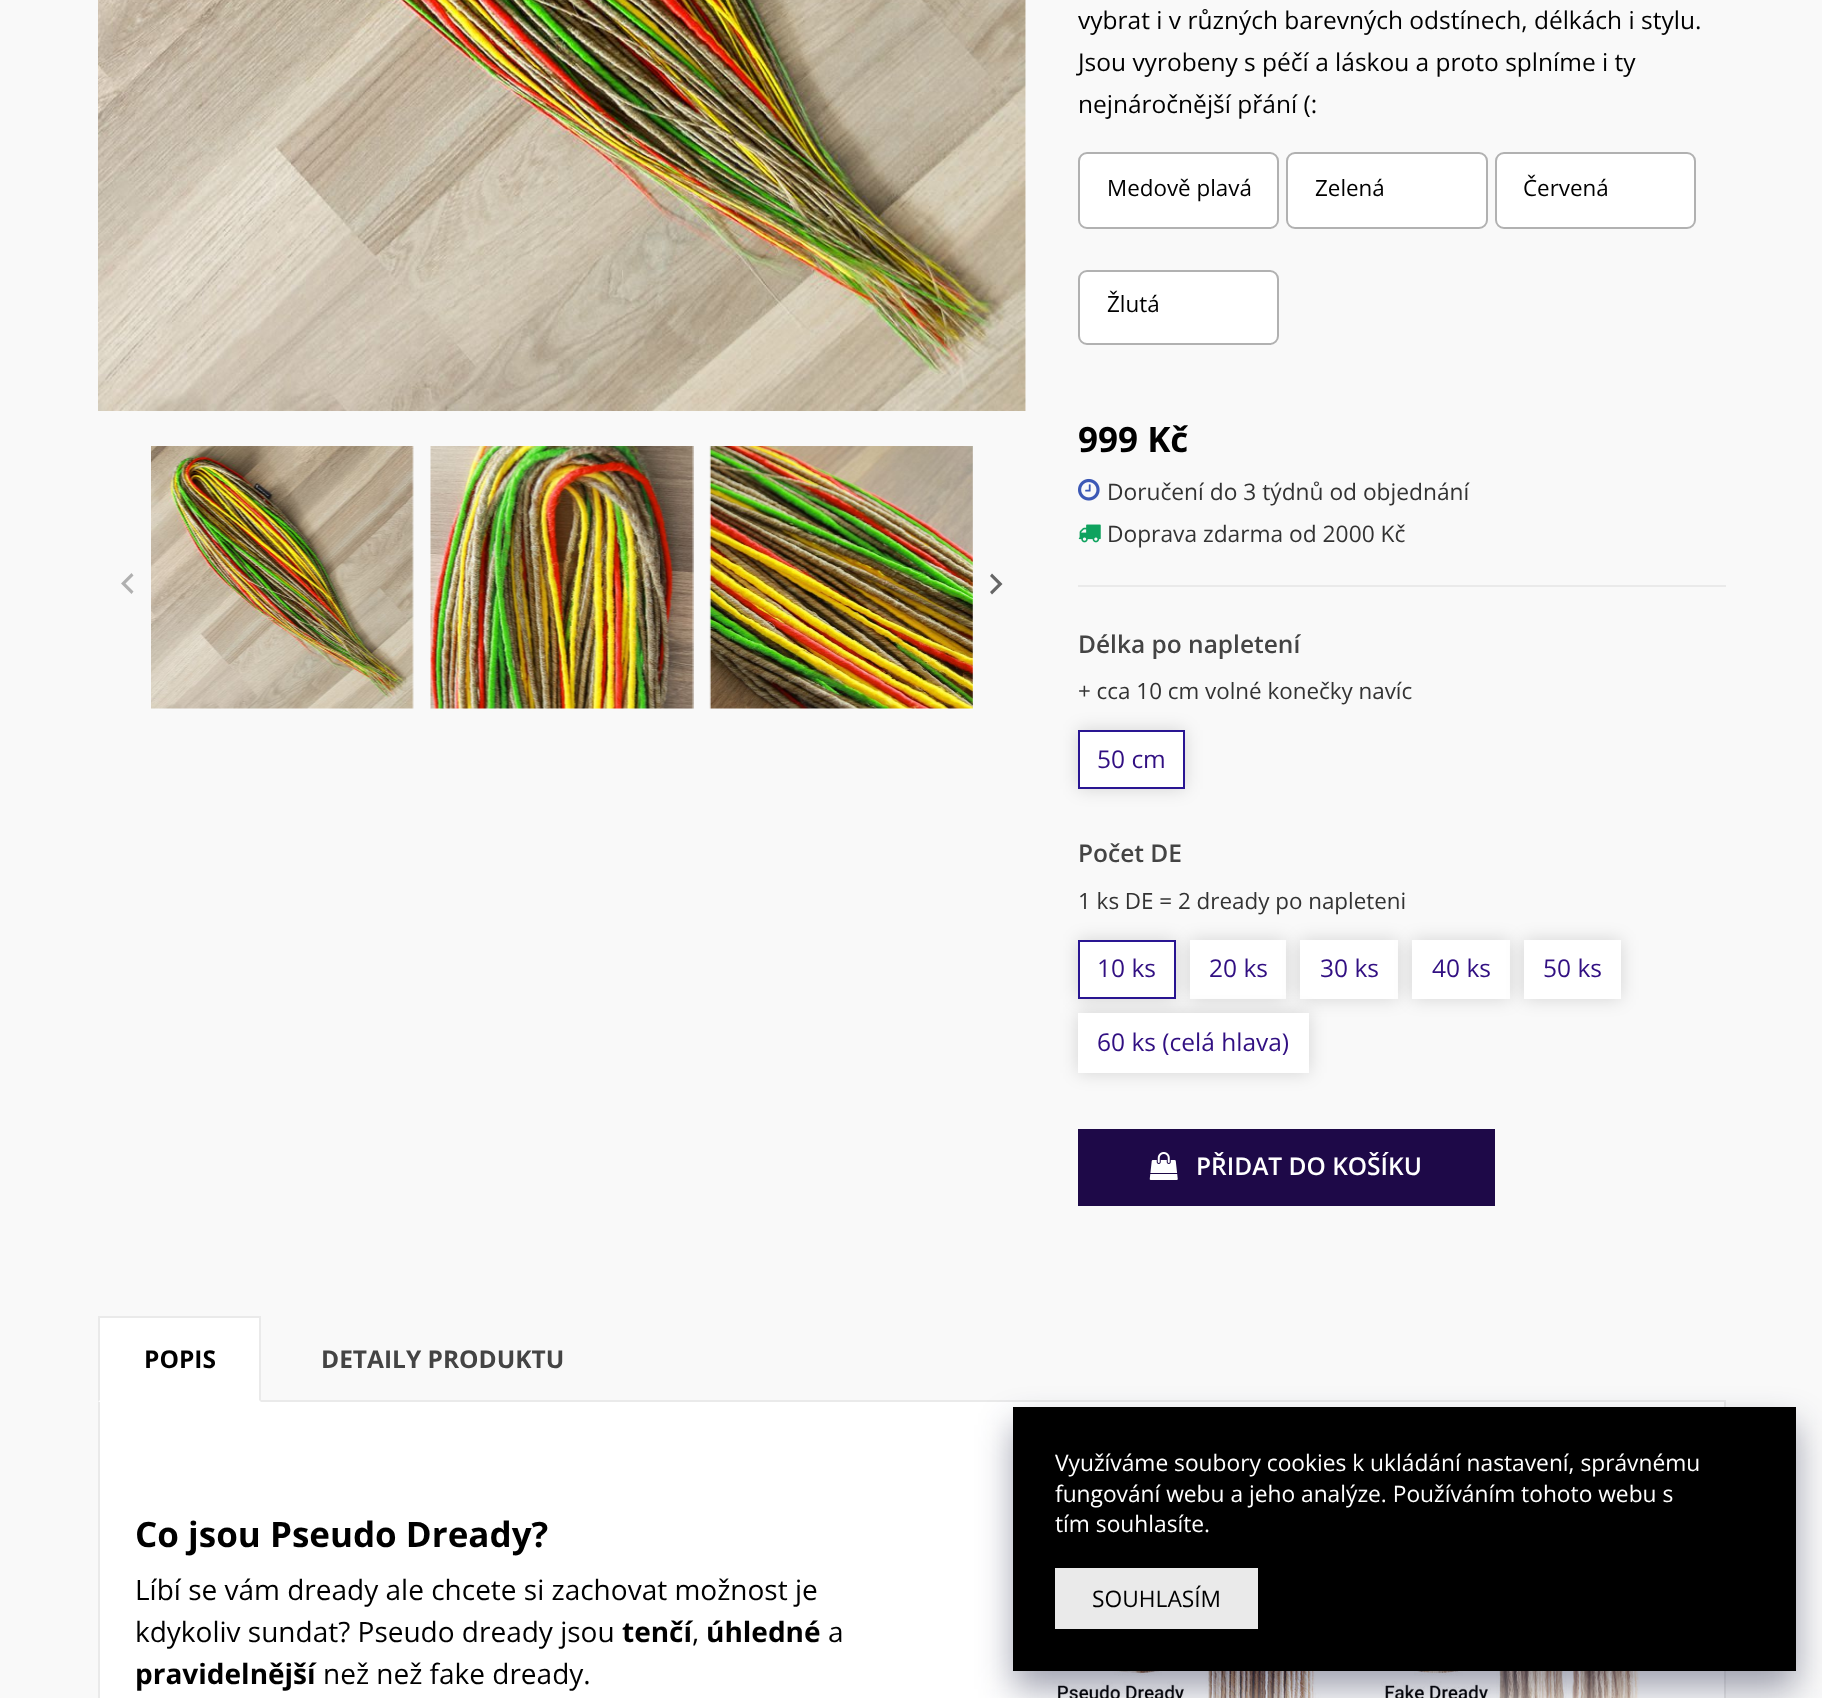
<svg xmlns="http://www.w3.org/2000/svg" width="1822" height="1698">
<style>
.a{font:24.5px Open Sans;fill:#000}
.b{font:22.4px Open Sans;fill:#000}
.c{font:bold 35px Open Sans;fill:#000}
.d{font:22.75px Open Sans;fill:#333}
.e{font:600 24.5px Open Sans;fill:#444}
.f{font:22.4px Open Sans;fill:#333}
.g{font:24.5px Open Sans;fill:#310f82}
.h{font:600 24.5px Open Sans;fill:#fff}
.i{font:bold 24.5px Open Sans;fill:#000}
.j{font:bold 24.5px Open Sans;fill:#444}
.k{font:28px Open Sans;fill:#000}
.l{font:bold 28px Open Sans;fill:#000}
.m{font:22.75px Open Sans;fill:#fff}
.n{font:22.75px Open Sans;fill:#000}
</style>
<rect width="100%" height="100%" fill="#f9f9f9"/>
<path fill="#fff" d="M1025 0h1v411H1025z"/>
<image href="1.png" x="98" y="0" width="928" height="411"/>
<image href="2.png" x="151" y="446" width="263" height="263"/>
<image href="3.png" x="430" y="446" width="264" height="263"/>
<image href="4.png" x="709" y="446" width="264" height="263"/>
<path fill="#b0b0b0" d="M133.5 591.5l-2 2.5l-10.5-10.5l10.5-10.5l2 2.5l-8 8z"/>
<path fill="#666" d="M990 592l8-8l-8-8l2-2.5l10.5 10.5l-10.5 10.5z"/>
<rect fill="#fff" stroke="#b1b1b1" stroke-width="2" x="1079" y="153" width="199" height="75" rx="8"/>
<rect fill="#fff" stroke="#b1b1b1" stroke-width="2" x="1287" y="153" width="200" height="75" rx="8"/>
<rect fill="#fff" stroke="#b1b1b1" stroke-width="2" x="1496" y="153" width="199" height="75" rx="8"/>
<rect fill="#fff" stroke="#b1b1b1" stroke-width="2" x="1079" y="271" width="199" height="73" rx="8"/>
<path fill="#eaeaea" d="M1078 585h648v2H1078z"/>
<image href="5.png" x="1078" y="478" width="22" height="23"/>
<image href="6.png" x="1078" y="524" width="23" height="19"/>
<path fill="#00000026" filter="blur(9px)" d="M1078 730h107v59H1078z"/>
<path fill="#fff" stroke="#291592" stroke-width="2" d="M1079 731h105v57H1079z"/>
<path fill="#00000026" filter="blur(9px)" d="M1078 940h98v59H1078z"/>
<path fill="#fff" stroke="#291592" stroke-width="2" d="M1079 941h96v57H1079z"/>
<path fill="#00000026" filter="blur(9px)" d="M1190 940h96v59H1190z"/>
<path fill="#fff" d="M1190 940h96v59H1190z"/>
<path fill="#00000026" filter="blur(9px)" d="M1300 940h98v59H1300z"/>
<path fill="#fff" d="M1300 940h98v59H1300z"/>
<path fill="#00000026" filter="blur(9px)" d="M1412 940h98v59H1412z"/>
<path fill="#fff" d="M1412 940h98v59H1412z"/>
<path fill="#00000026" filter="blur(9px)" d="M1524 940h97v59H1524z"/>
<path fill="#fff" d="M1524 940h97v59H1524z"/>
<path fill="#00000026" filter="blur(9px)" d="M1078 1013h231v60H1078z"/>
<path fill="#fff" d="M1078 1013h231v60H1078z"/>
<path fill="#1e0948" d="M1078 1129h417v77H1078z"/>
<image href="7.png" x="1149" y="1152" width="29" height="28"/>
<path fill="#fff" stroke="#eaeaea" stroke-width="2" d="M99 1401h1626v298H99z"/>
<path fill="#fff" d="M98 1318h163v84H98z"/>
<path fill="#eaeaea" d="M98 1316h163v2H98z"/>
<path fill="#eaeaea" d="M261 1316v86l-2-2v-82z"/>
<path fill="#eaeaea" d="M98 1402v-86l2 2v82z"/>
<image href="8.png" x="1037" y="1671" width="603" height="27"/>
<path fill="#13183c66" filter="blur(17.5px)" d="M1013 1425h783v264H1013z"/>
<path fill="#000" d="M1013 1407h783v264H1013z"/>
<path fill="#eaeaea" d="M1055 1568h203v61H1055z"/>
<text class="a" x="1078" y="29">vybrat i v různých barevných odstínech, délkách i stylu.</text>
<text class="a" x="1078" y="71">Jsou vyrobeny s péčí a láskou a proto splníme i ty</text>
<text class="a" x="1078" y="113">nejnáročnější přání (:</text>
<text class="b" x="1107" y="196">Medově plavá</text>
<text class="b" x="1315" y="196">Zelená</text>
<text class="b" x="1523" y="196">Červená</text>
<text class="b" x="1107" y="312">Žlutá</text>
<text class="c" x="1078" y="452">999 Kč</text>
<text class="d" x="1107" y="500">Doručení do 3 týdnů od objednání</text>
<text class="d" x="1107" y="542">Doprava zdarma od 2000 Kč</text>
<text class="e" x="1078" y="653">Délka po napletení</text>
<text class="f" x="1078" y="699">+ cca 10 cm volné konečky navíc</text>
<text class="g" x="1097" y="768">50 cm</text>
<text class="e" x="1078" y="862">Počet DE</text>
<text class="f" x="1078" y="909">1 ks DE = 2 dready po napleteni</text>
<text class="g" x="1097" y="977">10 ks</text>
<text class="g" x="1209" y="977">20 ks</text>
<text class="g" x="1320" y="977">30 ks</text>
<text class="g" x="1432" y="977">40 ks</text>
<text class="g" x="1543" y="977">50 ks</text>
<text class="g" x="1097" y="1051">60 ks (celá hlava)</text>
<text class="h" x="1196" y="1175">PŘIDAT DO KOŠÍKU</text>
<text class="i" x="144" y="1368">POPIS</text>
<text class="j" x="321" y="1368">DETAILY PRODUKTU</text>
<text class="c" x="135" y="1547">Co jsou Pseudo Dready?</text>
<text class="k" x="135" y="1600">Líbí se vám dready ale chcete si zachovat možnost je</text>
<text class="k" x="135" y="1642">kdykoliv sundat? Pseudo dready jsou</text>
<text class="l" x="622" y="1642">tenčí</text>
<text class="k" x="692" y="1642">,</text>
<text class="l" x="706" y="1642">úhledné</text>
<text class="k" x="828" y="1642">a</text>
<text class="l" x="135" y="1684">pravidelnější</text>
<text class="k" x="323" y="1684">než než fake dready.</text>
<text class="m" x="1055" y="1471">Využíváme soubory cookies k ukládání nastavení, správnému</text>
<text class="m" x="1055" y="1502">fungování webu a jeho analýze. Používáním tohoto webu s</text>
<text class="m" x="1055" y="1532">tím souhlasíte.</text>
<text class="n" x="1092" y="1607">SOUHLASÍM</text>
</svg>
